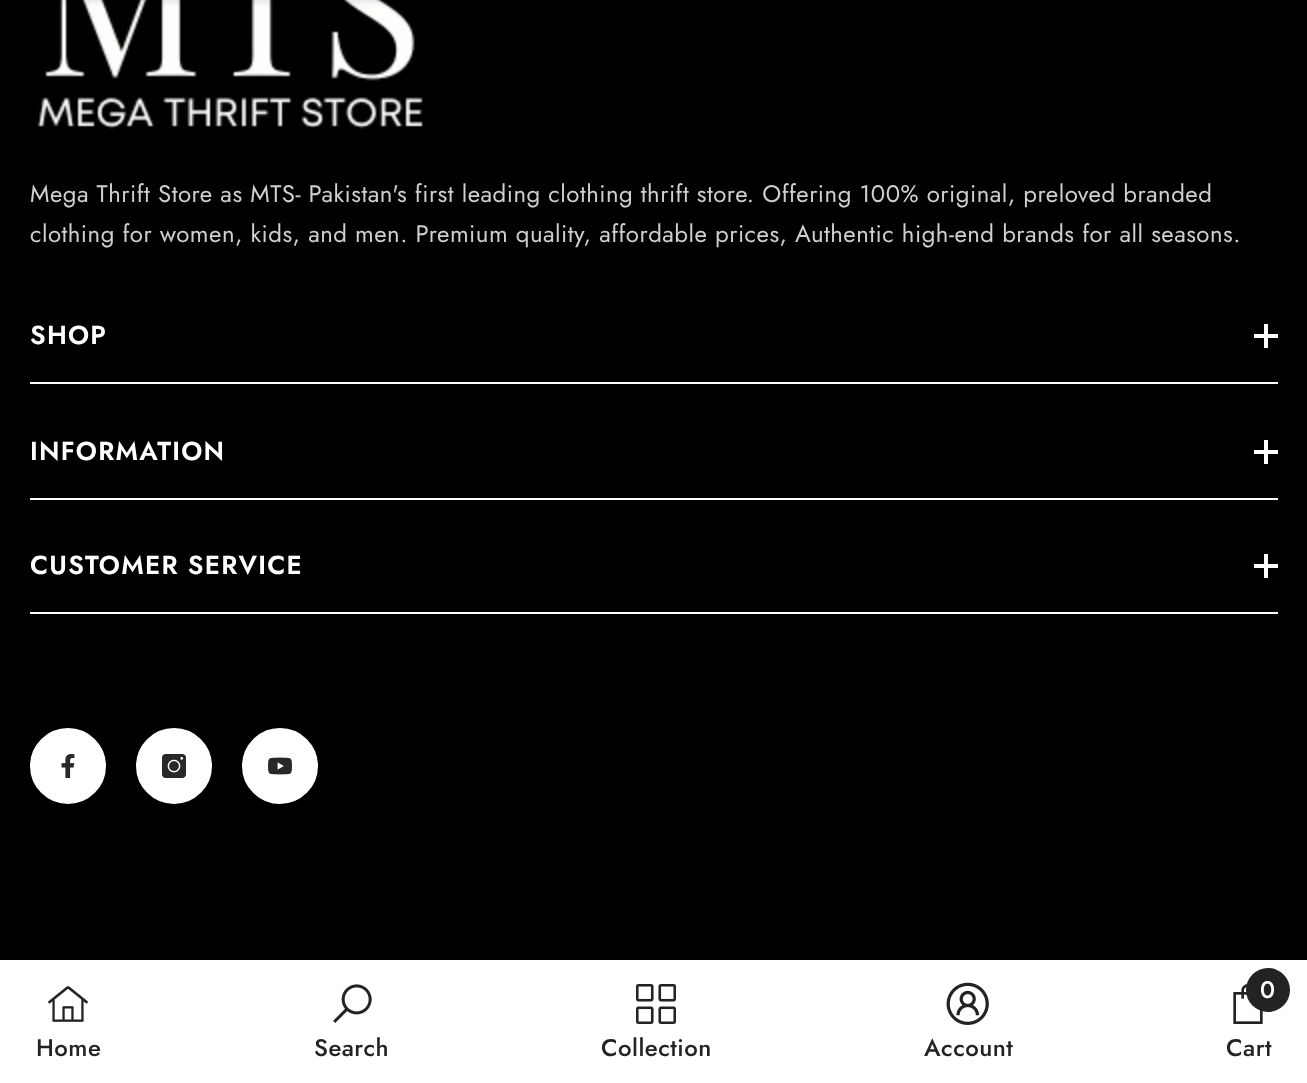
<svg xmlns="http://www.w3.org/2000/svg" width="1307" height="1083">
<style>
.a{font:24px Jost;letter-spacing:0.48px;fill:#cfcfcf}
.b{font:600 26px Jost;letter-spacing:1.25px;fill:#fff}
.c{font:500 24px Jost;letter-spacing:0.48px;fill:#232323}
.d{font:500 24px Jost;fill:#fff}
</style>
<rect width="100%" height="100%" fill="#000"/>
<image href="1.png" x="37" y="0" width="386" height="129"/>
<path fill="#0000001a" filter="blur(3px)" d="M0 -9h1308v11H0z"/>
<path fill="#fff" d="M30 382h1248v2H30z"/>
<path fill="#fff" d="M1264 324h4v24H1264z"/>
<path fill="#fff" d="M1254 334h24v4H1254z"/>
<path fill="#fff" d="M30 498h1248v2H30z"/>
<path fill="#fff" d="M1264 440h4v24H1264z"/>
<path fill="#fff" d="M1254 450h24v4H1254z"/>
<path fill="#fff" d="M30 612h1248v2H30z"/>
<path fill="#fff" d="M1264 554h4v24H1264z"/>
<path fill="#fff" d="M1254 564h24v4H1254z"/>
<circle fill="#fff" stroke="#fff" stroke-width="2" cx="68" cy="766" r="37"/>
<image href="2.png" x="61" y="754" width="14" height="24"/>
<circle fill="#fff" stroke="#fff" stroke-width="2" cx="174" cy="766" r="37"/>
<image href="3.png" x="162" y="754" width="24" height="24"/>
<circle fill="#fff" stroke="#fff" stroke-width="2" cx="280" cy="766" r="37"/>
<image href="4.png" x="268" y="757" width="24" height="18"/>
<path fill="#fff" d="M0 960h1307v123H0z"/>
<image href="5.png" x="48" y="986" width="40" height="36"/>
<image href="6.png" x="333" y="984" width="39" height="39"/>
<image href="7.png" x="636" y="984" width="40" height="40"/>
<image href="8.png" x="946" y="982" width="43" height="43"/>
<image href="9.png" x="1233" y="984" width="30" height="40"/>
<circle fill="#232323" cx="1268" cy="990" r="22"/>
<text class="a" x="30" y="202">Mega Thrift Store as MTS- Pakistan's first leading clothing thrift store. Offering 100% original, preloved branded</text>
<text class="a" x="30" y="242">clothing for women, kids, and men. Premium quality, affordable prices, Authentic high-end brands for all seasons.</text>
<text class="b" x="30" y="344">SHOP</text>
<text class="b" x="30" y="460">INFORMATION</text>
<text class="b" x="30" y="574">CUSTOMER SERVICE</text>
<text class="c" x="36" y="1056">Home</text>
<text class="c" x="314" y="1056">Search</text>
<text class="c" x="601" y="1056">Collection</text>
<text class="c" x="924" y="1056">Account</text>
<text class="d" x="1260" y="998">0</text>
<text class="c" x="1226" y="1056">Cart</text>
</svg>
